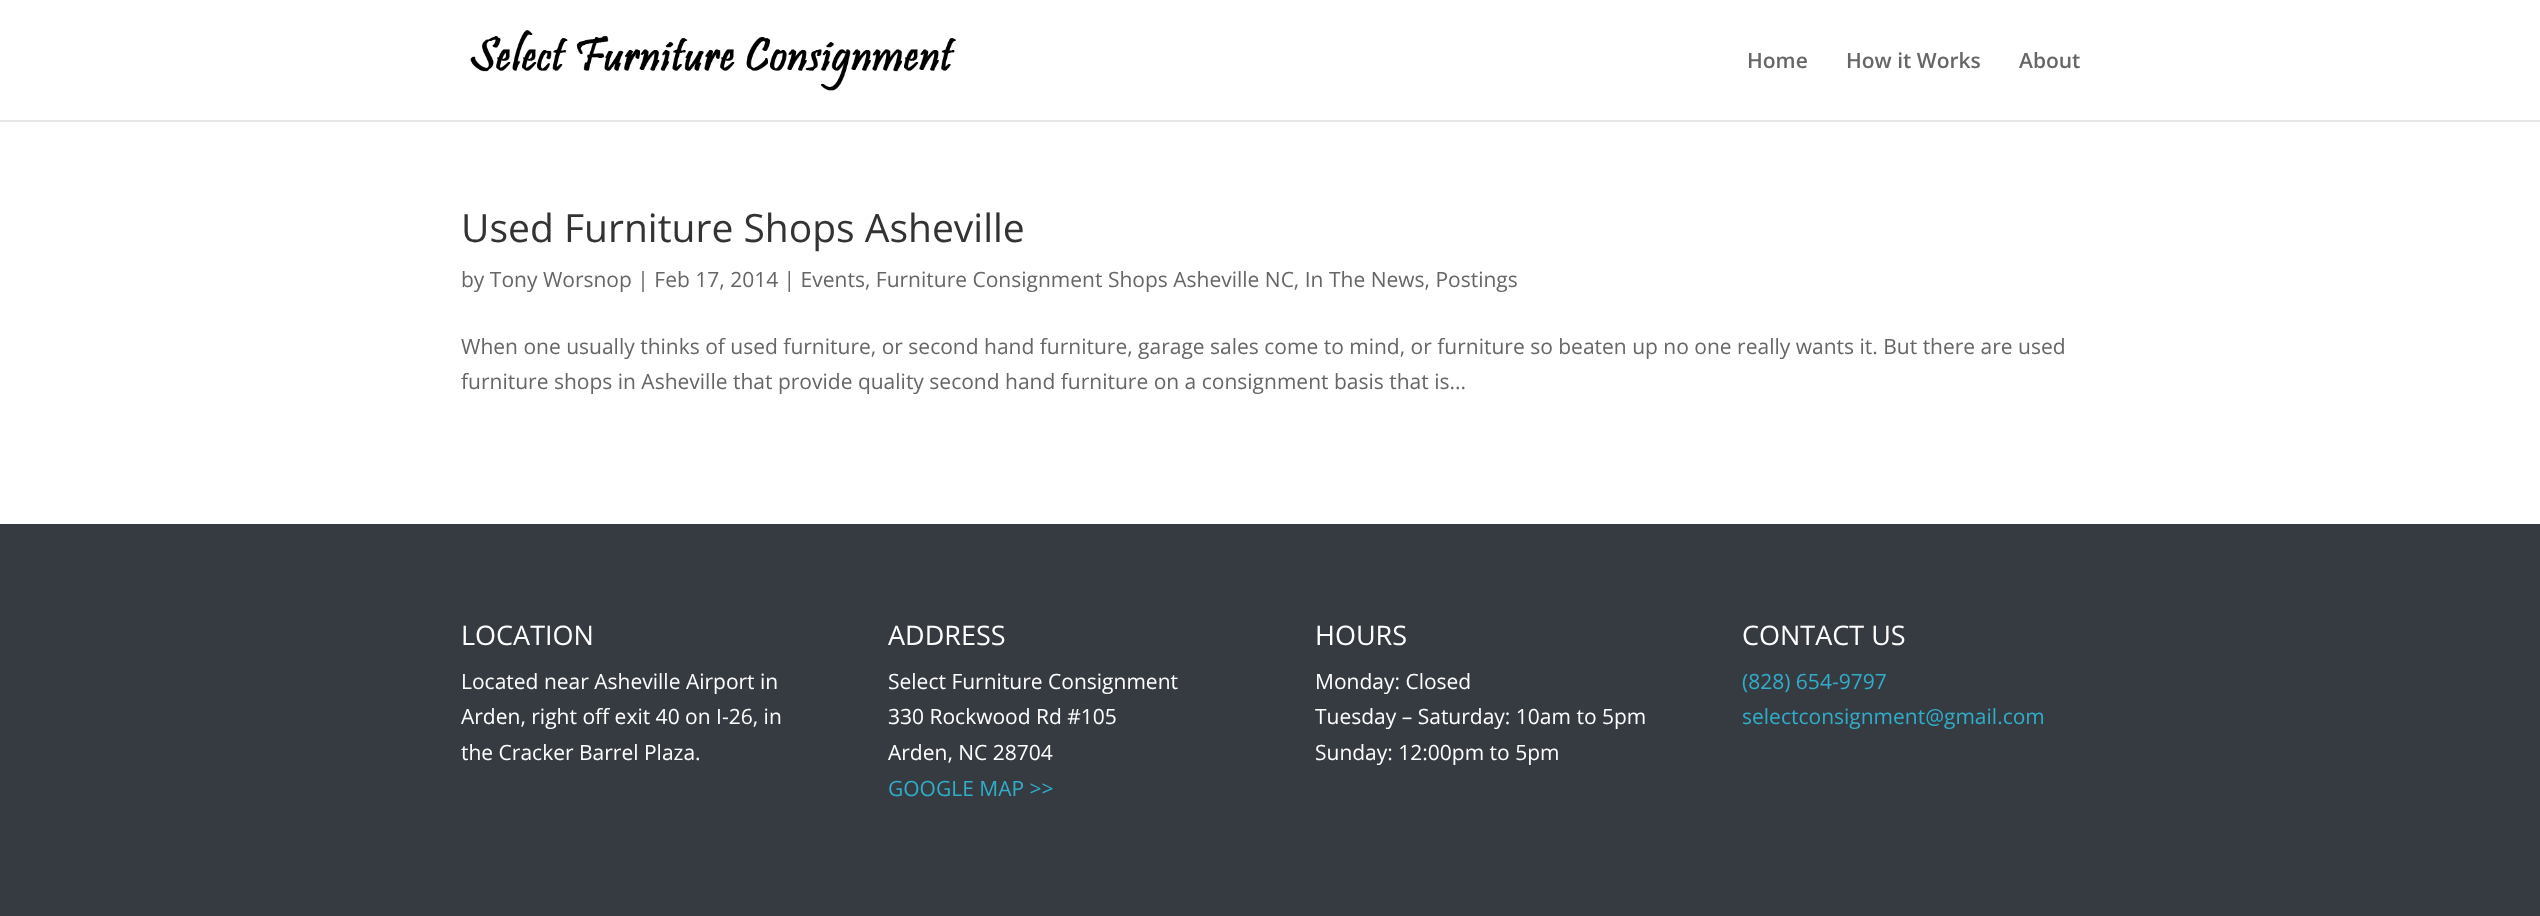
<svg xmlns="http://www.w3.org/2000/svg" width="2540" height="916">
<style>
.a{font:600 21px Open Sans;fill:#666}
.b{font:39px Open Sans;fill:#333}
.c{font:21px Open Sans;fill:#666}
.d{font:27px Open Sans;fill:#fff}
.e{font:21px Open Sans;fill:#fff}
.f{font:21px Open Sans;fill:#32adc9}
</style>
<rect width="100%" height="100%" fill="#fff"/>
<path fill="#e6e6e6" d="M0 120h2540v2H0z"/>
<image href="1.png" x="470" y="30" width="486" height="61"/>
<path fill="#363b42" d="M0 524h2540v392H0z"/>
<text class="a" x="1747" y="68">Home</text>
<text class="a" x="1846" y="68">How it Works</text>
<text class="a" x="2019" y="68">About</text>
<text class="b" x="461" y="242">Used Furniture Shops Asheville</text>
<text class="c" x="461" y="287">by Tony Worsnop | Feb 17, 2014 | Events, Furniture Consignment Shops Asheville NC, In The News, Postings</text>
<text class="c" x="461" y="354">When one usually thinks of used furniture, or second hand furniture, garage sales come to mind, or furniture so beaten up no one really wants it. But there are used</text>
<text class="c" x="461" y="389">furniture shops in Asheville that provide quality second hand furniture on a consignment basis that is...</text>
<text class="d" x="461" y="645">LOCATION</text>
<text class="e" x="461" y="689">Located near Asheville Airport in</text>
<text class="e" x="461" y="724">Arden, right off exit 40 on I-26, in</text>
<text class="e" x="461" y="760">the Cracker Barrel Plaza.</text>
<text class="d" x="888" y="645">ADDRESS</text>
<text class="e" x="888" y="689">Select Furniture Consignment</text>
<text class="e" x="888" y="724">330 Rockwood Rd #105</text>
<text class="e" x="888" y="760">Arden, NC 28704</text>
<text class="f" x="888" y="796">GOOGLE MAP &gt;&gt;</text>
<text class="d" x="1315" y="645">HOURS</text>
<text class="e" x="1315" y="689">Monday: Closed</text>
<text class="e" x="1315" y="724">Tuesday – Saturday: 10am to 5pm</text>
<text class="e" x="1315" y="760">Sunday: 12:00pm to 5pm</text>
<text class="d" x="1742" y="645">CONTACT US</text>
<text class="f" x="1742" y="689">(828) 654-9797</text>
<text class="f" x="1742" y="724">selectconsignment@gmail.com</text>
</svg>
